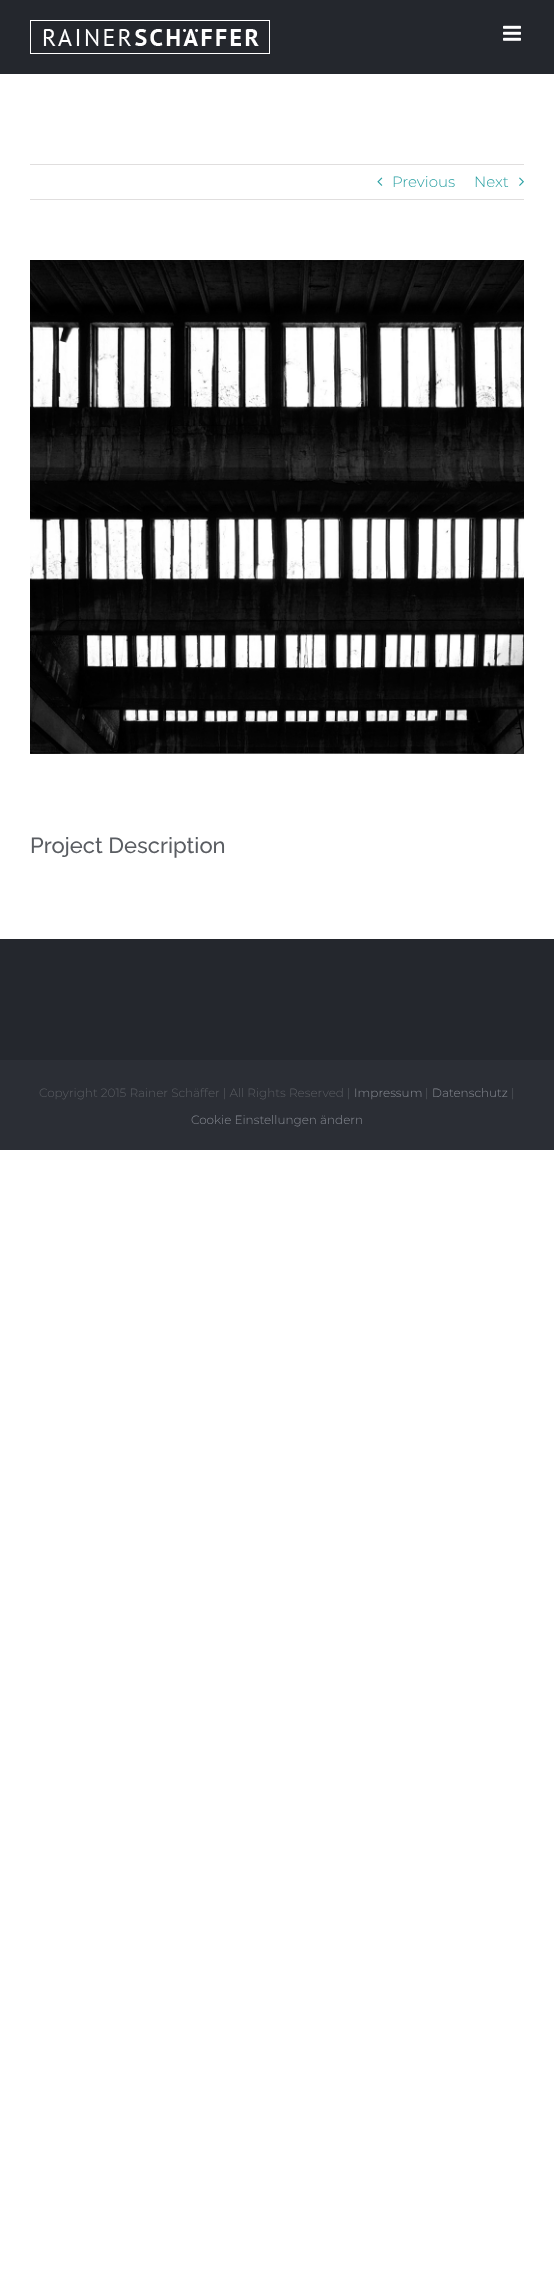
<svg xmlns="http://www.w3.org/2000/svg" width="554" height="2292">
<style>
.a{font:300 15px Montserrat;fill:#2ba0a3}
.b{font:100 22px Raleway;fill:#5a5d62}
.c{font:300 12px Montserrat;fill:#5a5d62}
.d{font:300 12px Montserrat;fill:#868a92}
</style>
<rect width="100%" height="100%" fill="#fff"/>
<path fill="#24272d" d="M0 0h554v74H0z"/>
<image href="1.png" x="30" y="20" width="240" height="34"/>
<image href="2.png" x="503" y="25" width="18" height="16"/>
<path fill="#e0dede" d="M30 164h494v1H30z"/>
<path fill="#e0dede" d="M30 199h494v1H30z"/>
<image href="3.png" x="377" y="177" width="6" height="9"/>
<image href="4.png" x="519" y="177" width="5" height="9"/>
<image href="5.png" x="30" y="260" width="494" height="494"/>
<path fill="#24272d" d="M0 939h554v121H0z"/>
<path fill="#2b2e35" d="M0 1060h554v90H0z"/>
<text class="a" x="392" y="187">Previous</text>
<text class="a" x="474" y="187">Next</text>
<text class="b" x="30" y="853">Project Description</text>
<text class="c" x="39" y="1097">Copyright 2015 Rainer Schäffer | All Rights Reserved |</text>
<text class="d" x="354" y="1097">Impressum</text>
<text class="c" x="425" y="1097">|</text>
<text class="d" x="432" y="1097">Datenschutz</text>
<text class="c" x="511" y="1097">|</text>
<text class="d" x="191" y="1124">Cookie Einstellungen ändern</text>
</svg>
